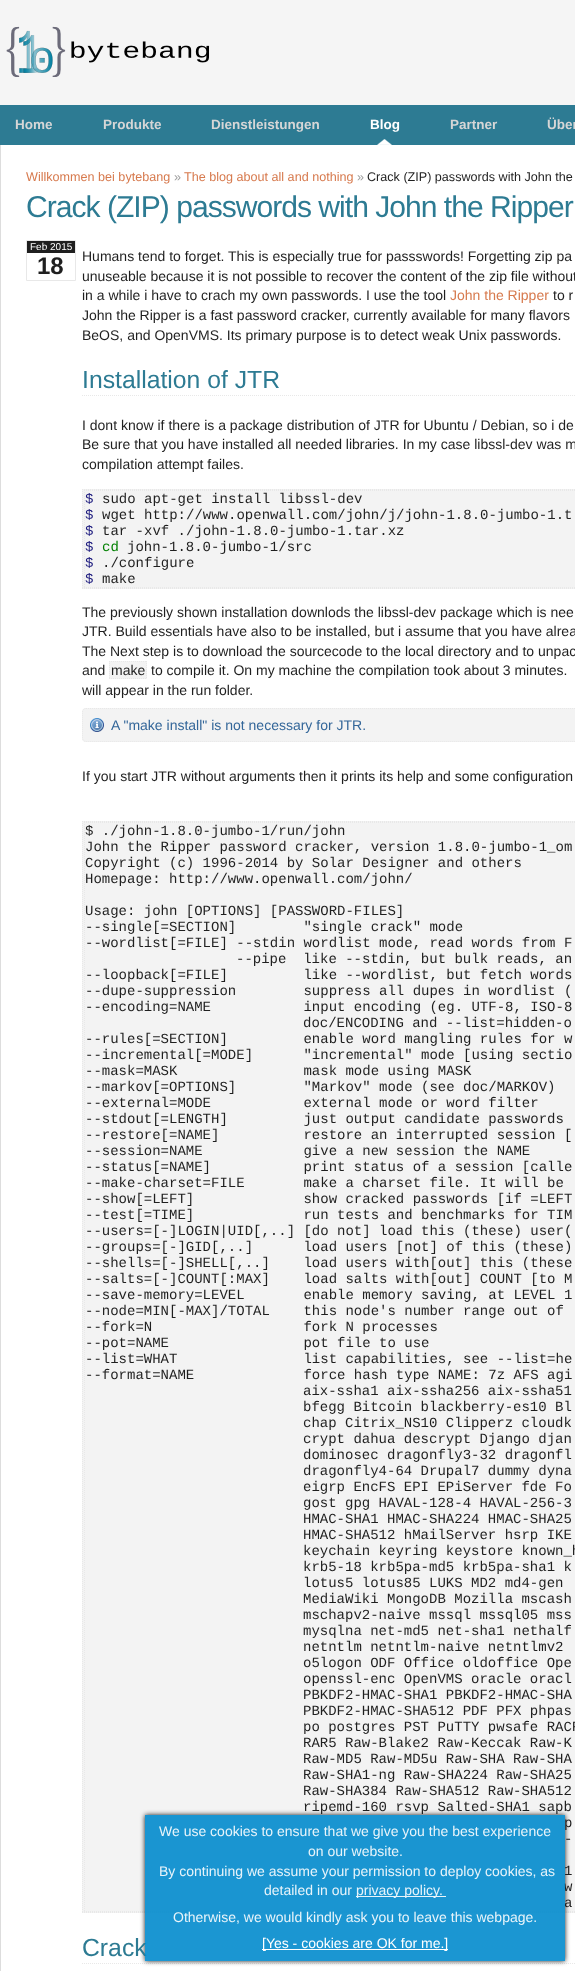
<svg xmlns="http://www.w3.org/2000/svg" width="575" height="1971">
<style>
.a{font:bold 13.5px Liberation Sans;fill:#d6d6d6}
.b{font:bold 13.5px Liberation Sans;fill:#fff}
.c{font:12.6px Liberation Sans;fill:#d77a4e}
.d{font:12.6px Liberation Sans;fill:#9f9f9f}
.e{font:12.6px Liberation Sans;fill:#1f1f1f}
.f{font:30.1px Liberation Sans;letter-spacing:-1px;fill:#2d7b93}
.g{font:10px Liberation Sans;fill:#fff}
.h{font:bold 24px Liberation Sans;fill:#1f1f1f}
.i{font:14px Liberation Sans;fill:#1f1f1f}
.j{font:14px Liberation Sans;fill:#d77a4e}
.k{font:24.75px Liberation Sans;fill:#2d7b93}
.l{font:14px Liberation Mono;fill:#19177c}
.m{font:14px Liberation Mono;fill:#1f1f1f}
.n{font:14px Liberation Mono;fill:#008000}
.o{font:14px Liberation Sans;fill:#369}
.p{font:14px Liberation Sans;fill:#e8f4fa}
.q{font:14px Liberation Sans;fill:#fff}
</style>
<defs>
<clipPath id="clip1"><path d="M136 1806h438v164h-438zm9 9h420v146h-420z" clip-rule="evenodd"/></clipPath>
</defs>
<rect width="100%" height="100%" fill="#f5f5f5"/>
<image href="1.png" x="6" y="26" width="204" height="51"/>
<path fill="#2d7b93" d="M0 105h575v40H0z"/>
<image href="2.png" x="377" y="139" width="15" height="6"/>
<path fill="#fff" d="M1 145h574v1826H1z"/>
<path fill="#ddd" fill-rule="evenodd" d="M0 145h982v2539c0 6-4 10-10 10h-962c-6 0-10-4-10-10zm1 0h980v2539c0 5-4 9-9 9h-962c-5 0-9-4-9-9z"/>
<path fill="#1f1f1f" d="M27 241h48v12H27z"/>
<path fill="none" stroke="#e8e8e8" d="M26.5 240.5h49v40H26.5z"/>
<path fill="none" stroke="#e8e8e8" stroke-dasharray="1 1" d="M82 395.5h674"/>
<path fill="#f3f3f3" d="M82 489h493v100H82z"/>
<path fill="none" stroke="#e8e8e8" stroke-dasharray="1 1" d="M82 489.5h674"/>
<path fill="none" stroke="#e8e8e8" stroke-dasharray="1 1" d="M82 588.5h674"/>
<path fill="none" stroke="#e8e8e8" stroke-dasharray="1 1" d="M82.5 489v100"/>
<path fill="none" stroke="#e8e8e8" stroke-dasharray="1 1" d="M84 490.5h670"/>
<path fill="none" stroke="#e8e8e8" stroke-dasharray="1 1" d="M84 587.5h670"/>
<path fill="none" stroke="#e8e8e8" stroke-dasharray="1 1" d="M84.5 490v98"/>
<path fill="#f3f3f3" d="M109 661h38v18H109z"/>
<path fill="none" stroke="#e8e8e8" stroke-dasharray="1 1" d="M109 661.5h38m-.5-.5v18m-37.5-.5h38m-37.5-17.5v18"/>
<rect fill="#f3f3f3" x="82" y="708" width="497" height="34" rx="4"/>
<image href="3.png" x="90" y="718" width="14" height="14"/>
<path fill="none" stroke="#e8e8e8" stroke-dasharray="1 1" d="M86 708.5h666c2 0 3.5 1.5 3.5 3.5v26c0 2-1.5 3.5-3.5 3.5h-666c-2 0-3.5-1.5-3.5-3.5v-26c0-2 1.5-3.5 3.5-3.5z"/>
<path fill="#f3f3f3" d="M82 821h493v1092H82z"/>
<path fill="none" stroke="#e8e8e8" stroke-dasharray="1 1" d="M82 821.5h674"/>
<path fill="none" stroke="#e8e8e8" stroke-dasharray="1 1" d="M82 1912.5h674"/>
<path fill="none" stroke="#e8e8e8" stroke-dasharray="1 1" d="M82.5 821v1092"/>
<path fill="none" stroke="#e8e8e8" stroke-dasharray="1 1" d="M84 822.5h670"/>
<path fill="none" stroke="#e8e8e8" stroke-dasharray="1 1" d="M84 1911.5h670"/>
<path fill="none" stroke="#e8e8e8" stroke-dasharray="1 1" d="M84.5 822v1090"/>
<path fill="none" stroke="#e8e8e8" stroke-dasharray="1 1" d="M82 1963.5h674"/>
<g clip-path="url(#clip1)">
<path fill="#000000e6" filter="blur(2.5px)" d="M145 1815h420v146H145z"/>
</g>
<text class="a" x="15" y="129">Home</text>
<text class="a" x="103" y="129">Produkte</text>
<text class="a" x="211" y="129">Dienstleistungen</text>
<text class="b" x="370" y="129">Blog</text>
<text class="a" x="450" y="129">Partner</text>
<text class="a" x="547" y="129">Über</text>
<text class="c" x="26" y="181">Willkommen bei bytebang</text>
<text class="d" x="174" y="181">»</text>
<text class="c" x="184" y="181">The blog about all and nothing</text>
<text class="d" x="357" y="181">»</text>
<text class="e" x="367" y="181">Crack (ZIP) passwords with John the</text>
<text class="f" x="26" y="217">Crack (ZIP) passwords with John the Ripper</text>
<text class="g" x="30" y="250">Feb 2015</text>
<text class="h" x="37" y="274">18</text>
<text class="i" x="82" y="261">Humans tend to forget. This is especially true for passswords! Forgetting zip pa</text>
<text class="i" x="82" y="281">unuseable because it is not possible to recover the content of the zip file without</text>
<text class="i" x="82" y="300">in a while i have to crach my own passwords. I use the tool</text>
<text class="j" x="450" y="300">John the Ripper</text>
<text class="i" x="553" y="300">to r</text>
<text class="i" x="82" y="320">John the Ripper is a fast password cracker, currently available for many flavors</text>
<text class="i" x="82" y="340">BeOS, and OpenVMS. Its primary purpose is to detect weak Unix passwords.</text>
<text class="k" x="82" y="388">Installation of JTR</text>
<text class="i" x="82" y="430">I dont know if there is a package distribution of JTR for Ubuntu / Debian, so i de</text>
<text class="i" x="82" y="449">Be sure that you have installed all needed libraries. In my case libssl-dev was m</text>
<text class="i" x="82" y="469">compilation attempt failes.</text>
<text class="l" x="85" y="503">$</text>
<text class="m" x="102" y="503">sudo apt-get install libssl-dev</text>
<text class="l" x="85" y="519">$</text>
<text class="m" x="102" y="519">wget http://www.openwall.com/john/j/john-1.8.0-jumbo-1.t</text>
<text class="l" x="85" y="535">$</text>
<text class="m" x="102" y="535">tar -xvf ./john-1.8.0-jumbo-1.tar.xz</text>
<text class="l" x="85" y="551">$</text>
<text class="n" x="102" y="551">cd</text>
<text class="m" x="127" y="551">john-1.8.0-jumbo-1/src</text>
<text class="l" x="85" y="567">$</text>
<text class="m" x="102" y="567">./configure</text>
<text class="l" x="85" y="583">$</text>
<text class="m" x="102" y="583">make</text>
<text class="i" x="82" y="617">The previously shown installation downlods the libssl-dev package which is nee</text>
<text class="i" x="82" y="636">JTR. Build essentials have also to be installed, but i assume that you have alrea</text>
<text class="i" x="82" y="656">The Next step is to download the sourcecode to the local directory and to unpac</text>
<text class="i" x="82" y="675">and</text>
<text class="i" x="111" y="675">make</text>
<text class="i" x="151" y="675">to compile it. On my machine the compilation took about 3 minutes.</text>
<text class="i" x="82" y="695">will appear in the run folder.</text>
<text class="o" x="111" y="730">A "make install" is not necessary for JTR.</text>
<text class="i" x="82" y="781">If you start JTR without arguments then it prints its help and some configuration</text>
<text class="m" x="85" y="835">$ ./john-1.8.0-jumbo-1/run/john</text>
<text class="m" x="85" y="851">John the Ripper password cracker, version 1.8.0-jumbo-1_om</text>
<text class="m" x="85" y="867">Copyright (c) 1996-2014 by Solar Designer and others</text>
<text class="m" x="85" y="883">Homepage: http://www.openwall.com/john/</text>
<text class="m" x="85" y="915">Usage: john [OPTIONS] [PASSWORD-FILES]</text>
<text class="m" xml:space="preserve" x="85" y="931">--single[=SECTION]        "single crack" mode</text>
<text class="m" x="85" y="947">--wordlist[=FILE] --stdin wordlist mode, read words from F</text>
<text class="m" xml:space="preserve" x="236" y="963">--pipe  like --stdin, but bulk reads, an</text>
<text class="m" xml:space="preserve" x="85" y="979">--loopback[=FILE]         like --wordlist, but fetch words</text>
<text class="m" xml:space="preserve" x="85" y="995">--dupe-suppression        suppress all dupes in wordlist (</text>
<text class="m" xml:space="preserve" x="85" y="1011">--encoding=NAME           input encoding (eg. UTF-8, ISO-8</text>
<text class="m" x="303" y="1027">doc/ENCODING and --list=hidden-o</text>
<text class="m" xml:space="preserve" x="85" y="1043">--rules[=SECTION]         enable word mangling rules for w</text>
<text class="m" xml:space="preserve" x="85" y="1059">--incremental[=MODE]      "incremental" mode [using sectio</text>
<text class="m" xml:space="preserve" x="85" y="1075">--mask=MASK               mask mode using MASK</text>
<text class="m" xml:space="preserve" x="85" y="1091">--markov[=OPTIONS]        "Markov" mode (see doc/MARKOV)</text>
<text class="m" xml:space="preserve" x="85" y="1107">--external=MODE           external mode or word filter</text>
<text class="m" xml:space="preserve" x="85" y="1123">--stdout[=LENGTH]         just output candidate passwords</text>
<text class="m" xml:space="preserve" x="85" y="1139">--restore[=NAME]          restore an interrupted session [</text>
<text class="m" xml:space="preserve" x="85" y="1155">--session=NAME            give a new session the NAME</text>
<text class="m" xml:space="preserve" x="85" y="1171">--status[=NAME]           print status of a session [calle</text>
<text class="m" xml:space="preserve" x="85" y="1187">--make-charset=FILE       make a charset file. It will be</text>
<text class="m" xml:space="preserve" x="85" y="1203">--show[=LEFT]             show cracked passwords [if =LEFT</text>
<text class="m" xml:space="preserve" x="85" y="1219">--test[=TIME]             run tests and benchmarks for TIM</text>
<text class="m" x="85" y="1235">--users=[-]LOGIN|UID[,..] [do not] load this (these) user(</text>
<text class="m" xml:space="preserve" x="85" y="1251">--groups=[-]GID[,..]      load users [not] of this (these)</text>
<text class="m" xml:space="preserve" x="85" y="1267">--shells=[-]SHELL[,..]    load users with[out] this (these</text>
<text class="m" xml:space="preserve" x="85" y="1283">--salts=[-]COUNT[:MAX]    load salts with[out] COUNT [to M</text>
<text class="m" xml:space="preserve" x="85" y="1299">--save-memory=LEVEL       enable memory saving, at LEVEL 1</text>
<text class="m" xml:space="preserve" x="85" y="1315">--node=MIN[-MAX]/TOTAL    this node's number range out of</text>
<text class="m" xml:space="preserve" x="85" y="1331">--fork=N                  fork N processes</text>
<text class="m" xml:space="preserve" x="85" y="1347">--pot=NAME                pot file to use</text>
<text class="m" xml:space="preserve" x="85" y="1363">--list=WHAT               list capabilities, see --list=he</text>
<text class="m" xml:space="preserve" x="85" y="1379">--format=NAME             force hash type NAME: 7z AFS agi</text>
<text class="m" x="303" y="1395">aix-ssha1 aix-ssha256 aix-ssha51</text>
<text class="m" x="303" y="1411">bfegg Bitcoin blackberry-es10 Bl</text>
<text class="m" x="303" y="1427">chap Citrix_NS10 Clipperz cloudk</text>
<text class="m" x="303" y="1443">crypt dahua descrypt Django djan</text>
<text class="m" x="303" y="1459">dominosec dragonfly3-32 dragonfl</text>
<text class="m" x="303" y="1475">dragonfly4-64 Drupal7 dummy dyna</text>
<text class="m" x="303" y="1491">eigrp EncFS EPI EPiServer fde Fo</text>
<text class="m" x="303" y="1507">gost gpg HAVAL-128-4 HAVAL-256-3</text>
<text class="m" x="303" y="1523">HMAC-SHA1 HMAC-SHA224 HMAC-SHA25</text>
<text class="m" x="303" y="1539">HMAC-SHA512 hMailServer hsrp IKE</text>
<text class="m" x="303" y="1555">keychain keyring keystore known_h</text>
<text class="m" x="303" y="1571">krb5-18 krb5pa-md5 krb5pa-sha1 k</text>
<text class="m" x="303" y="1587">lotus5 lotus85 LUKS MD2 md4-gen</text>
<text class="m" x="303" y="1603">MediaWiki MongoDB Mozilla mscash</text>
<text class="m" x="303" y="1619">mschapv2-naive mssql mssql05 mss</text>
<text class="m" x="303" y="1635">mysqlna net-md5 net-sha1 nethalf</text>
<text class="m" x="303" y="1651">netntlm netntlm-naive netntlmv2</text>
<text class="m" x="303" y="1667">o5logon ODF Office oldoffice Ope</text>
<text class="m" x="303" y="1683">openssl-enc OpenVMS oracle oracl</text>
<text class="m" x="303" y="1699">PBKDF2-HMAC-SHA1 PBKDF2-HMAC-SHA</text>
<text class="m" x="303" y="1715">PBKDF2-HMAC-SHA512 PDF PFX phpas</text>
<text class="m" x="303" y="1731">po postgres PST PuTTY pwsafe RACF</text>
<text class="m" x="303" y="1747">RAR5 Raw-Blake2 Raw-Keccak Raw-K</text>
<text class="m" x="303" y="1763">Raw-MD5 Raw-MD5u Raw-SHA Raw-SHA</text>
<text class="m" x="303" y="1779">Raw-SHA1-ng Raw-SHA224 Raw-SHA25</text>
<text class="m" x="303" y="1795">Raw-SHA384 Raw-SHA512 Raw-SHA512</text>
<text class="m" x="303" y="1811">ripemd-160 rsvp Salted-SHA1 sapb</text>
<text class="m" x="564" y="1827">p</text>
<text class="m" x="564" y="1843">-</text>
<text class="m" x="564" y="1875">1</text>
<text class="m" x="564" y="1891">w</text>
<text class="m" x="564" y="1907">a</text>
<text class="k" x="82" y="1956">Crack</text>
<path fill="#028bcde6" d="M145 1815h420v146H145z"/>
<text class="p" x="159" y="1836">We use cookies to ensure that we give you the best experience</text>
<text class="p" x="308" y="1856">on our website.</text>
<text class="p" x="159" y="1876">By continuing we assume your permission to deploy cookies, as</text>
<text class="p" x="264" y="1895">detailed in our</text>
<path fill="#ffffffe6" d="M356 1896h90v1H356z"/>
<text class="p" x="356" y="1895">privacy policy.</text>
<text class="p" x="173" y="1922">Otherwise, we would kindly ask you to leave this webpage.</text>
<path fill="#fff" d="M262 1949h186v1H262z"/>
<text class="q" x="262" y="1948">[Yes - cookies are OK for me.]</text>
</svg>
